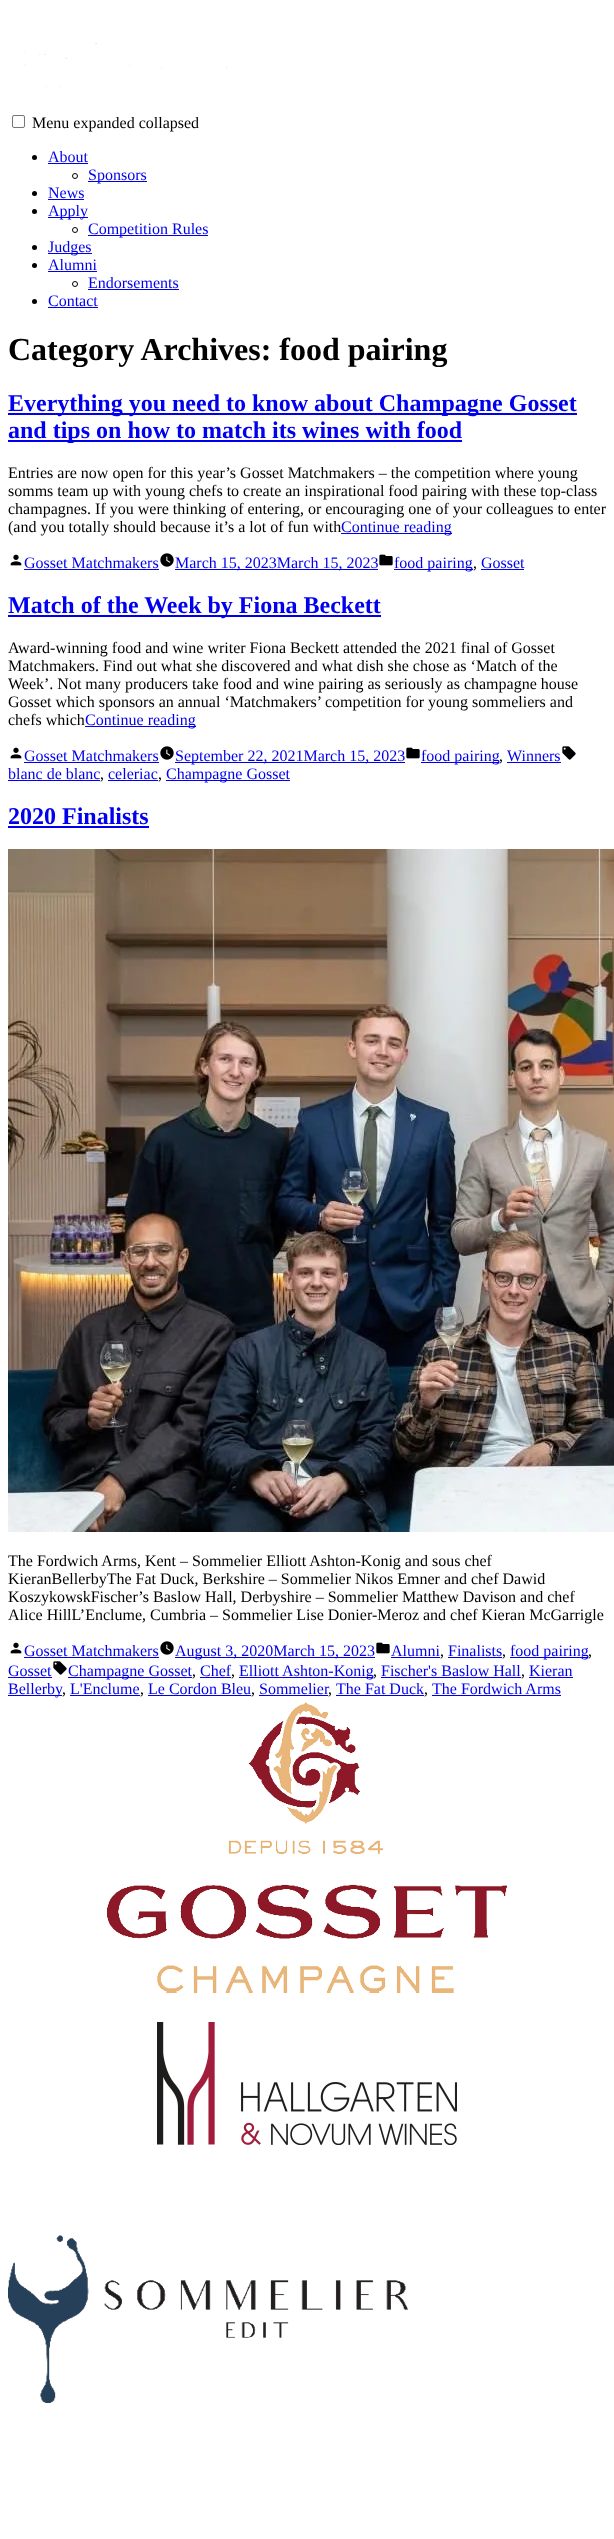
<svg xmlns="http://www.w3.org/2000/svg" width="614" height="2539">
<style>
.a{font:16px Liberation Serif;fill:#000}
.b{font:16px Liberation Serif;fill:#00e}
.c{font:bold 32px Liberation Serif;fill:#000}
.d{font:bold 24px Liberation Serif;fill:#00e}
</style>
<rect width="100%" height="100%" fill="#fff"/>
<image href="1.png" x="24" y="43" width="203" height="44"/>
<rect fill="none" stroke="#767676" x="12.5" y="115.5" width="12" height="12" rx="1.5"/>
<circle fill="#000" cx="34.5" cy="157.5" r="2.5"/>
<path fill="#00e" d="M48 163h40v1H48z"/>
<circle fill="none" stroke="#000" cx="75" cy="176" r="2.5"/>
<path fill="#00e" d="M88 181h59v1H88z"/>
<circle fill="#000" cx="34.5" cy="193.5" r="2.5"/>
<path fill="#00e" d="M48 199h36v1H48z"/>
<circle fill="#000" cx="34.5" cy="211.5" r="2.5"/>
<path fill="#00e" d="M48 217h40v1H48z"/>
<circle fill="none" stroke="#000" cx="75" cy="230" r="2.5"/>
<path fill="#00e" d="M88 235h120v1H88z"/>
<circle fill="#000" cx="34.5" cy="247.5" r="2.5"/>
<path fill="#00e" d="M48 253h44v1H48z"/>
<circle fill="#000" cx="34.5" cy="265.5" r="2.5"/>
<path fill="#00e" d="M48 271h49v1H48z"/>
<circle fill="none" stroke="#000" cx="75" cy="284" r="2.5"/>
<path fill="#00e" d="M88 289h91v1H88z"/>
<circle fill="#000" cx="34.5" cy="301.5" r="2.5"/>
<path fill="#00e" d="M48 307h50v1H48z"/>
<path fill="#00e" d="M8 413h569v2H8z"/>
<path fill="#00e" d="M8 440h454v2H8z"/>
<image href="2.png" x="10" y="554" width="12" height="12"/>
<path fill="#00e" d="M24 569h135v1H24z"/>
<image href="3.png" x="160" y="553" width="14" height="14"/>
<path fill="#00e" d="M175 569h203v1H175z"/>
<image href="4.png" x="379" y="554" width="14" height="12"/>
<path fill="#00e" d="M394 569h79v1H394z"/>
<path fill="#00e" d="M481 569h43v1H481z"/>
<path fill="#00e" d="M8 615h373v2H8z"/>
<path fill="#00e" d="M85 726h111v1H85z"/>
<image href="2.png" x="10" y="747" width="12" height="12"/>
<path fill="#00e" d="M24 762h135v1H24z"/>
<image href="3.png" x="160" y="746" width="14" height="14"/>
<path fill="#00e" d="M175 762h230v1H175z"/>
<image href="4.png" x="406" y="747" width="14" height="12"/>
<path fill="#00e" d="M421 762h78v1H421z"/>
<path fill="#00e" d="M507 762h54v1H507z"/>
<image href="5.png" x="562" y="746" width="14" height="14"/>
<path fill="#00e" d="M8 780h92v1H8z"/>
<path fill="#00e" d="M108 780h50v1H108z"/>
<path fill="#00e" d="M166 780h124v1H166z"/>
<path fill="#00e" d="M8 826h141v2H8z"/>
<image href="6.png" x="8" y="849" width="606" height="683"/>
<image href="2.png" x="10" y="1642" width="12" height="12"/>
<path fill="#00e" d="M24 1657h135v1H24z"/>
<image href="3.png" x="160" y="1641" width="14" height="14"/>
<path fill="#00e" d="M175 1657h200v1H175z"/>
<image href="4.png" x="376" y="1642" width="14" height="12"/>
<path fill="#00e" d="M391 1657h49v1H391z"/>
<path fill="#00e" d="M448 1657h54v1H448z"/>
<path fill="#00e" d="M510 1657h78v1H510z"/>
<path fill="#00e" d="M8 1677h44v1H8z"/>
<image href="5.png" x="53" y="1661" width="14" height="14"/>
<path fill="#00e" d="M68 1677h124v1H68z"/>
<path fill="#00e" d="M200 1677h31v1H200z"/>
<path fill="#00e" d="M239 1677h134v1H239z"/>
<path fill="#00e" d="M381 1677h140v1H381z"/>
<path fill="#00e" d="M529 1677h44v1H529z"/>
<path fill="#00e" d="M8 1695h54v1H8z"/>
<path fill="#00e" d="M70 1695h70v1H70z"/>
<path fill="#00e" d="M148 1695h103v1H148z"/>
<path fill="#00e" d="M259 1695h69v1H259z"/>
<path fill="#00e" d="M336 1695h88v1H336z"/>
<path fill="#00e" d="M432 1695h129v1H432z"/>
<image href="7.png" x="107" y="1702" width="400" height="291"/>
<image href="8.png" x="157" y="2022" width="300" height="123"/>
<image href="9.png" x="8" y="2235" width="400" height="168"/>
<text class="a" x="32" y="128">Menu expanded collapsed</text>
<text class="b" x="48" y="162">About</text>
<text class="b" x="88" y="180">Sponsors</text>
<text class="b" x="48" y="198">News</text>
<text class="b" x="48" y="216">Apply</text>
<text class="b" x="88" y="234">Competition Rules</text>
<text class="b" x="48" y="252">Judges</text>
<text class="b" x="48" y="270">Alumni</text>
<text class="b" x="88" y="288">Endorsements</text>
<text class="b" x="48" y="306">Contact</text>
<text class="c" x="8" y="360">Category Archives: food pairing</text>
<text class="d" x="8" y="411">Everything you need to know about Champagne Gosset</text>
<text class="d" x="8" y="438">and tips on how to match its wines with food</text>
<text class="a" x="8" y="478">Entries are now open for this year’s Gosset Matchmakers – the competition where young</text>
<text class="a" x="8" y="496">somms team up with young chefs to create an inspirational food pairing with these top-class</text>
<text class="a" x="8" y="514">champagnes. If you were thinking of entering, or encouraging one of your colleagues to enter</text>
<text class="a" x="8" y="532">(and you totally should because it’s a lot of fun with</text>
<path fill="#00e" d="M341 533h111v1H341z"/>
<text class="b" x="341" y="532">Continue reading</text>
<text class="b" x="24" y="568">Gosset Matchmakers</text>
<text class="b" x="175" y="568">March 15, 2023March 15, 2023</text>
<text class="b" x="394" y="568">food pairing</text>
<text class="a" x="473" y="568">,</text>
<text class="b" x="481" y="568">Gosset</text>
<text class="d" x="8" y="613">Match of the Week by Fiona Beckett</text>
<text class="a" x="8" y="653">Award-winning food and wine writer Fiona Beckett attended the 2021 final of Gosset</text>
<text class="a" x="8" y="671">Matchmakers. Find out what she discovered and what dish she chose as ‘Match of the</text>
<text class="a" x="8" y="689">Week’. Not many producers take food and wine pairing as seriously as champagne house</text>
<text class="a" x="8" y="707">Gosset which sponsors an annual ‘Matchmakers’ competition for young sommeliers and</text>
<text class="a" x="8" y="725">chefs which</text>
<text class="b" x="85" y="725">Continue reading</text>
<text class="b" x="24" y="761">Gosset Matchmakers</text>
<text class="b" x="175" y="761">September 22, 2021March 15, 2023</text>
<text class="b" x="421" y="761">food pairing</text>
<text class="a" x="499" y="761">,</text>
<text class="b" x="507" y="761">Winners</text>
<text class="b" x="8" y="779">blanc de blanc</text>
<text class="a" x="100" y="779">,</text>
<text class="b" x="108" y="779">celeriac</text>
<text class="a" x="158" y="779">,</text>
<text class="b" x="166" y="779">Champagne Gosset</text>
<text class="d" x="8" y="824">2020 Finalists</text>
<text class="a" x="8" y="1566">The Fordwich Arms, Kent – Sommelier Elliott Ashton-Konig and sous chef</text>
<text class="a" x="8" y="1584">KieranBellerbyThe Fat Duck, Berkshire – Sommelier Nikos Emner and chef Dawid</text>
<text class="a" x="8" y="1602">KoszykowskFischer’s Baslow Hall, Derbyshire – Sommelier Matthew Davison and chef</text>
<text class="a" x="8" y="1620">Alice HillL’Enclume, Cumbria – Sommelier Lise Donier-Meroz and chef Kieran McGarrigle</text>
<text class="b" x="24" y="1656">Gosset Matchmakers</text>
<text class="b" x="175" y="1656">August 3, 2020March 15, 2023</text>
<text class="b" x="391" y="1656">Alumni</text>
<text class="a" x="440" y="1656">,</text>
<text class="b" x="448" y="1656">Finalists</text>
<text class="a" x="502" y="1656">,</text>
<text class="b" x="510" y="1656">food pairing</text>
<text class="a" x="588" y="1656">,</text>
<text class="b" x="8" y="1676">Gosset</text>
<text class="b" x="68" y="1676">Champagne Gosset</text>
<text class="a" x="192" y="1676">,</text>
<text class="b" x="200" y="1676">Chef</text>
<text class="a" x="231" y="1676">,</text>
<text class="b" x="239" y="1676">Elliott Ashton-Konig</text>
<text class="a" x="373" y="1676">,</text>
<text class="b" x="381" y="1676">Fischer's Baslow Hall</text>
<text class="a" x="521" y="1676">,</text>
<text class="b" x="529" y="1676">Kieran</text>
<text class="b" x="8" y="1694">Bellerby</text>
<text class="b" x="70" y="1694">L'Enclume</text>
<text class="b" x="148" y="1694">Le Cordon Bleu</text>
<text class="b" x="259" y="1694">Sommelier</text>
<text class="b" x="336" y="1694">The Fat Duck</text>
<text class="b" x="432" y="1694">The Fordwich Arms</text>
<text class="a" x="62" y="1694">,</text>
<text class="a" x="140" y="1694">,</text>
<text class="a" x="251" y="1694">,</text>
<text class="a" x="328" y="1694">,</text>
<text class="a" x="424" y="1694">,</text>
</svg>
